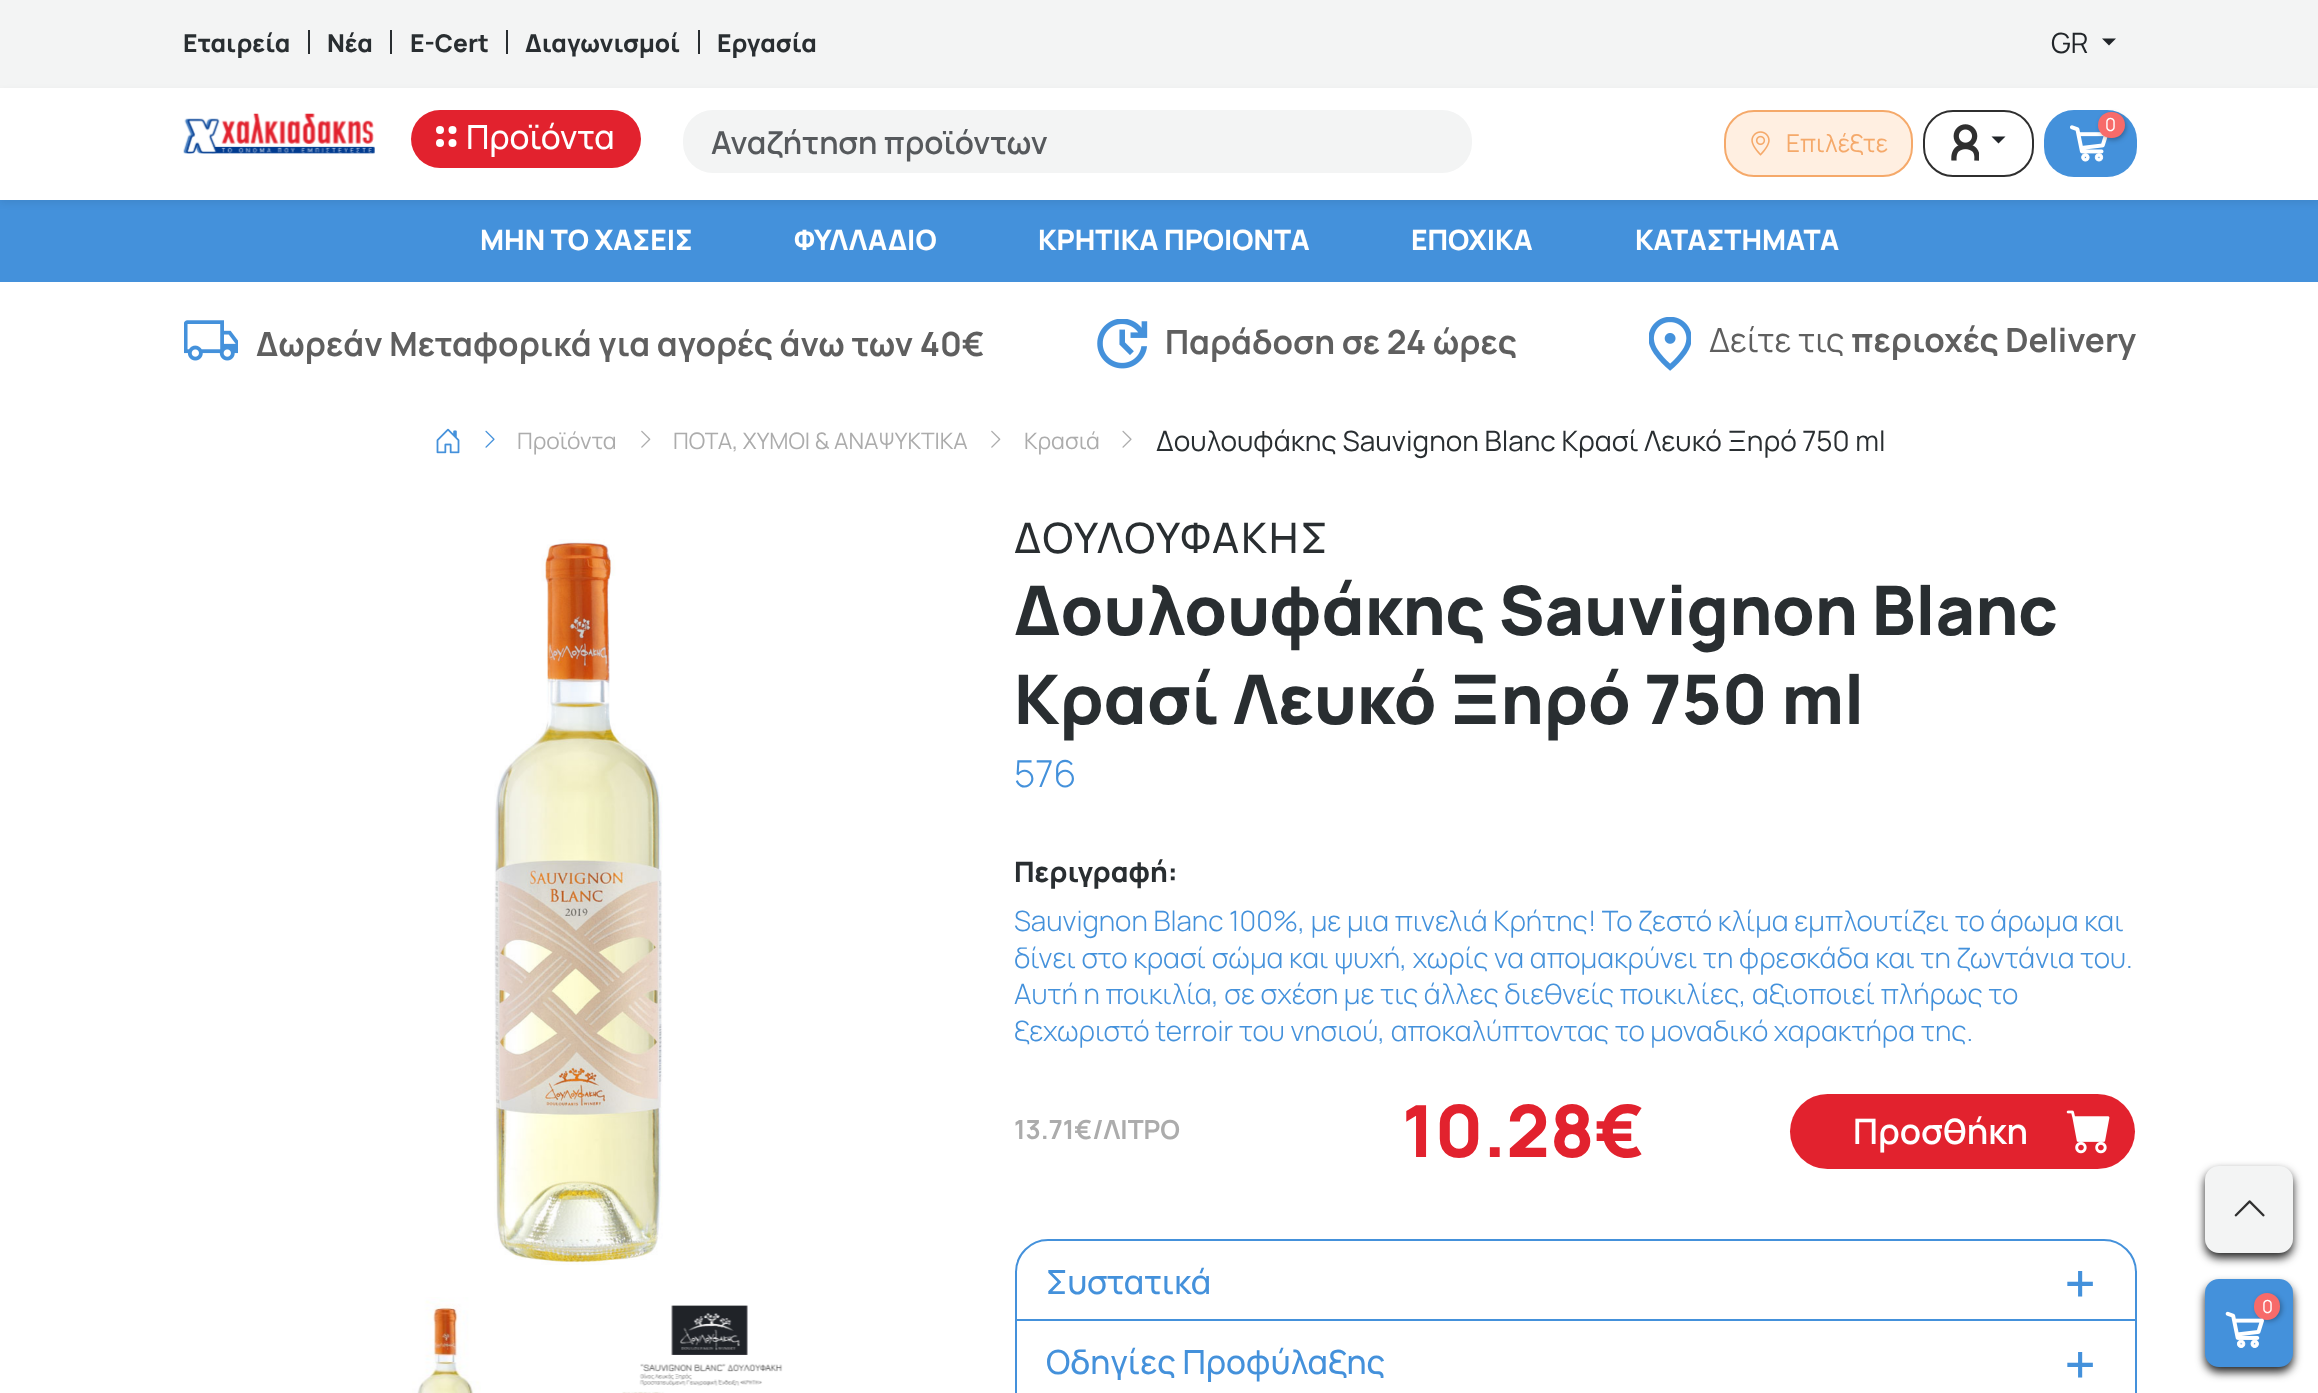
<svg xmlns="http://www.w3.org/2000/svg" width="2318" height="1393">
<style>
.a{font:800 24.5px Manrope;fill:#292e31}
.b{font:28px Manrope;fill:#212529}
.c{font:500 33.25px Manrope;fill:#fff}
.d{font:600 31.5px Manrope;fill:#56595c}
.e{font:18px Manrope;fill:#fff}
.f{font:24.5px Manrope;fill:#f5a96a}
.g{font:800 28px Manrope;fill:#fff}
.h{font:bold 33.25px Manrope;fill:#5f5f5f}
.i{font:33.25px Manrope;fill:#5f5f5f}
.j{font:22.75px Manrope;fill:#acacac}
.k{font:28px Manrope;fill:#292e31}
.l{font:500 42px Manrope;letter-spacing:2.1px;fill:#292e31}
.m{font:800 68.25px Manrope;fill:#292e31}
.n{font:300 37px Manrope;fill:#4491db}
.o{font:800 28px Manrope;fill:#292e31}
.p{font:300 28px Manrope;fill:#4491db}
.q{font:bold 26.25px Manrope;fill:#acacac}
.r{font:800 72px Manrope;fill:#e2222e}
.s{font:600 35px Manrope;fill:#fff}
.t{font:500 33.25px Manrope;fill:#4491db}
.u{font:500 56px Manrope;fill:#4491db}
</style>
<rect width="100%" height="100%" fill="#fff"/>
<path fill="#f3f4f4" d="M0 0h2318v88H0z"/>
<path fill="#292e31" d="M308 30h2v24H308z"/>
<path fill="#292e31" d="M390 30h2v24H390z"/>
<path fill="#292e31" d="M506 30h2v24H506z"/>
<path fill="#292e31" d="M698 30h2v24H698z"/>
<path fill="#212529" d="M2102 38.5h14l-7 7z"/>
<path fill="#4491db" d="M0 200h2318v82H0z"/>
<path fill="#00000012" filter="blur(3.5px)" d="M0 91h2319v112H0z"/>
<path fill="#fff" d="M0 88h2318v112H0z"/>
<image href="1.png" x="183" y="113" width="192" height="41"/>
<rect fill="#e2222e" x="411" y="110" width="230" height="58" rx="29"/>
<circle fill="#fff" cx="452.5" cy="130" r="4"/>
<circle fill="#fff" cx="440" cy="130" r="4"/>
<circle fill="#fff" cx="452.5" cy="143" r="4"/>
<circle fill="#fff" cx="440" cy="143" r="4"/>
<rect fill="#f3f4f4" x="683" y="110" width="789" height="63" rx="30"/>
<rect fill="#4491db" x="2044" y="110" width="93" height="67" rx="30"/>
<image href="2.png" x="2070" y="125" width="38" height="37"/>
<rect fill="#0000004d" filter="blur(2.5px)" x="2100" y="114" width="26" height="26" rx="13"/>
<rect fill="#f76b6a" x="2098" y="112" width="27" height="26" rx="13"/>
<rect fill="#ffefe1" stroke="#f5a96a" stroke-width="2" x="1725" y="111" width="187" height="65" rx="29"/>
<image href="3.png" x="1751" y="131" width="19" height="25"/>
<rect fill="none" stroke="#2f2f2f" stroke-width="2" x="1924" y="111" width="109" height="65" rx="29"/>
<image href="4.png" x="1951" y="124" width="28" height="37"/>
<path fill="#212529" d="M1991.5 136.5h14l-7 7z"/>
<image href="5.png" x="184" y="320" width="54" height="41"/>
<image href="6.png" x="1097" y="319" width="51" height="50"/>
<image href="7.png" x="1649" y="317" width="42" height="54"/>
<image href="8.png" x="436" y="428" width="24" height="26"/>
<image href="9.png" x="485" y="430" width="10" height="18"/>
<image href="10.png" x="641" y="430" width="10" height="18"/>
<image href="10.png" x="991" y="430" width="10" height="18"/>
<image href="11.png" x="1122" y="430" width="10" height="18"/>
<image href="12.png" x="494" y="539" width="169" height="726"/>
<image href="13.png" x="412" y="1297" width="69" height="96"/>
<image href="14.png" x="622" y="1305" width="161" height="88"/>
<rect fill="#e2222e" x="1790" y="1094" width="345" height="75" rx="37.5"/>
<image href="15.png" x="2066" y="1110" width="44" height="44"/>
<path fill="none" stroke="#4491db" stroke-width="2" d="M1048 1240h1056c17.5 0 32 14.5 32 32v48h-1120v-48c0-17.5 14.5-32 32-32z"/>
<path fill="#4491db" d="M2135 1321h2v72H2135z"/>
<path fill="#4491db" d="M1015 1321h2v72H1015z"/>
<rect fill="#222" filter="blur(5px)" x="2205" y="1171" width="88" height="87" rx="14"/>
<rect fill="#f3f4f4" x="2205" y="1166" width="88" height="87" rx="14"/>
<image href="16.png" x="2234" y="1200" width="31" height="17"/>
<rect fill="#222" filter="blur(5px)" x="2205" y="1285" width="88" height="87" rx="14"/>
<rect fill="#4491db" x="2205" y="1279" width="88" height="88" rx="14"/>
<rect fill="#0000004d" filter="blur(2.5px)" x="2256" y="1295" width="26" height="26" rx="13"/>
<rect fill="#f76b6a" x="2254" y="1293" width="26" height="27" rx="13"/>
<text class="a" x="183" y="52">Εταιρεία</text>
<text class="a" x="327" y="52">Νέα</text>
<text class="a" x="410" y="52">E-Cert</text>
<text class="a" x="525" y="52">Διαγωνισμοί</text>
<text class="a" x="717" y="52">Εργασία</text>
<text class="b" x="2051" y="53">GR</text>
<text class="c" x="466" y="149">Προϊόντα</text>
<text class="d" x="711" y="154">Αναζήτηση προϊόντων</text>
<text class="e" x="2105" y="131">0</text>
<text class="f" x="1786" y="152">Επιλέξτε</text>
<text class="g" x="480" y="250">ΜΗΝ ΤΟ ΧΑΣΕΙΣ</text>
<text class="g" x="794" y="250">ΦΥΛΛΑΔΙΟ</text>
<text class="g" x="1038" y="250">ΚΡΗΤΙΚΑ ΠΡΟΙΟΝΤΑ</text>
<text class="g" x="1411" y="250">ΕΠΟΧΙΚΑ</text>
<text class="g" x="1635" y="250">ΚΑΤΑΣΤΗΜΑΤΑ</text>
<text class="h" x="256" y="356">Δωρεάν Μεταφορικά για αγορές άνω των 40€</text>
<text class="h" x="1165" y="354">Παράδοση σε 24 ώρες</text>
<text class="i" x="1709" y="352">Δείτε τις</text>
<text class="h" x="1851" y="352">περιοχές Delivery</text>
<text class="j" x="517" y="449">Προϊόντα</text>
<text class="j" x="673" y="449">ΠΟΤΑ, ΧΥΜΟΙ &amp; ΑΝΑΨΥΚΤΙΚΑ</text>
<text class="j" x="1024" y="449">Κρασιά</text>
<text class="k" x="1156" y="451">Δουλουφάκης Sauvignon Blanc Κρασί Λευκό Ξηρό 750 ml</text>
<text class="l" x="1014" y="553">ΔΟΥΛΟΥΦΑΚΗΣ</text>
<text class="m" x="1014" y="635">Δουλουφάκης Sauvignon Blanc</text>
<text class="m" x="1014" y="724">Κρασί Λευκό Ξηρό 750 ml</text>
<text class="n" x="1014" y="787">576</text>
<text class="o" x="1014" y="882">Περιγραφή:</text>
<text class="p" x="1014" y="931">Sauvignon Blanc 100%, με μια πινελιά Κρήτης! Το ζεστό κλίμα εμπλουτίζει το άρωμα και</text>
<text class="p" x="1014" y="968">δίνει στο κρασί σώμα και ψυχή, χωρίς να απομακρύνει τη φρεσκάδα και τη ζωντάνια του.</text>
<text class="p" x="1014" y="1004">Αυτή η ποικιλία, σε σχέση με τις άλλες διεθνείς ποικιλίες, αξιοποιεί πλήρως το</text>
<text class="p" x="1014" y="1041">ξεχωριστό terroir του νησιού, αποκαλύπτοντας το μοναδικό χαρακτήρα της.</text>
<text class="q" x="1014" y="1139">13.71€/ΛΙΤΡΟ</text>
<text class="r" x="1402" y="1157">10.28€</text>
<text class="s" x="1853" y="1144">Προσθήκη</text>
<text class="t" x="1046" y="1294">Συστατικά</text>
<text class="u" x="2064" y="1304">+</text>
<text class="t" x="1046" y="1374">Οδηγίες Προφύλαξης</text>
<text class="u" x="2064" y="1385">+</text>
<text class="e" x="2262" y="1313">0</text>
<image href="17.png" x="2225" y="1311" width="39" height="37"/>
</svg>
